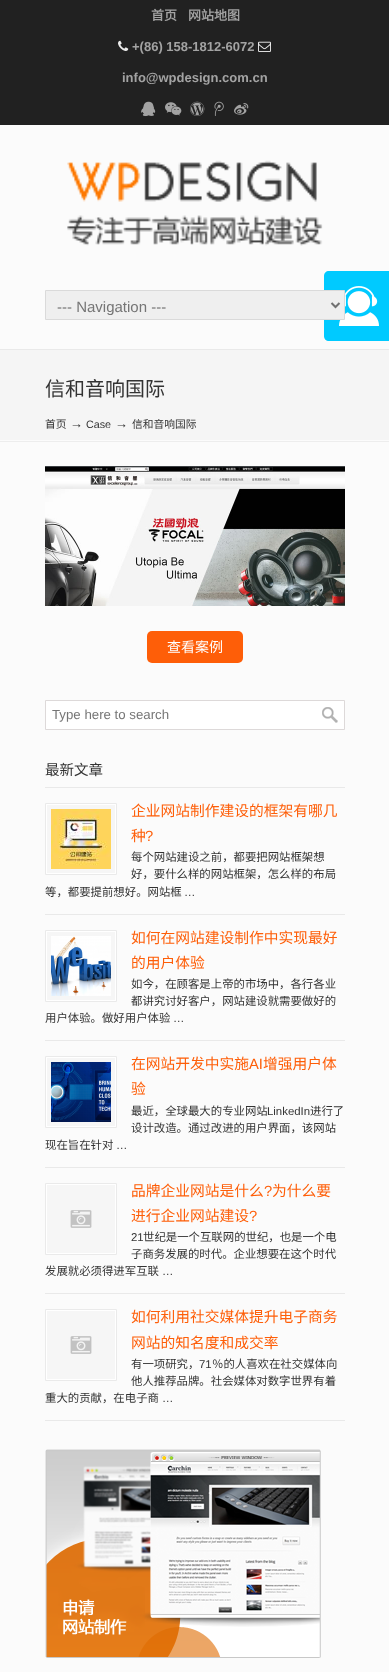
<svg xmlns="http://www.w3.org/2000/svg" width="389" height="1672">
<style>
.a{font:bold 13px Noto Sans CJK SC;fill:#a3a3a3}
.b{font:bold 13px Liberation Sans;fill:#a3a3a3}
.c{font:15px Liberation Sans;fill:#757575}
.d{font:20px Noto Sans CJK SC;fill:#333}
.e{font:10.75px Noto Sans CJK SC;fill:#333}
.f{font:13px Liberation Sans;fill:#333}
.g{font:10.75px Liberation Sans;fill:#333}
.h{font:14px Noto Sans CJK SC;fill:#fff}
.i{font:13.25px Liberation Sans;fill:#757575}
.j{font:14.5px Noto Sans CJK SC;fill:#333}
.k{font:14.75px Noto Sans CJK SC;fill:#fe5e08}
.l{font:14.75px Liberation Sans;fill:#fe5e08}
.m{font:11.4px Noto Sans CJK SC;fill:#333}
.n{font:11.4px Liberation Sans;fill:#333}
</style>
<rect width="100%" height="100%" fill="#fbfbfb"/>
<path fill="#212121" d="M0 0h389v125H0z"/>
<image href="1.png" x="118" y="40" width="11" height="11"/>
<image href="2.png" x="258" y="41" width="13" height="11"/>
<image href="3.png" x="141" y="101" width="15" height="16"/>
<image href="4.png" x="165" y="102" width="17" height="14"/>
<image href="5.png" x="190" y="101" width="15" height="15"/>
<image href="6.png" x="214" y="101" width="10" height="15"/>
<image href="7.png" x="234" y="103" width="15" height="12"/>
<image href="8.png" x="67" y="160" width="256" height="86"/>
<path fill="#e9e9e9" d="M0 349h389v1H0z"/>
<path fill="#00caff" d="M329 271h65v70h-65c-3 0-5-2-5-5v-60c0-3 2-5 5-5z"/>
<image href="17.png" x="339" y="286" width="40" height="40"/>
<path fill="#efefef" stroke="#dadada" d="M45.5 290.5h299v29H45.5z"/>
<path fill="none" stroke="#717171" stroke-width="2" d="M331.5 303l4 4l4-4"/>
<path fill="#f5f5f5" d="M0 350h389v90H0z"/>
<image href="9.png" x="0" y="441" width="389" height="1"/>
<image href="10.png" x="45" y="466" width="300" height="140"/>
<rect fill="#fe5e08" x="147" y="631" width="96" height="32" rx="5"/>
<path fill="#fff" stroke="#ddd9d9" d="M45.5 700.5h299v29H45.5z"/>
<image href="11.png" x="322" y="707" width="16" height="16"/>
<path fill="#e9e9e9" d="M45 787h300v1H45z"/>
<path fill="#e9e9e9" d="M45 914h300v1H45z"/>
<path fill="#f6f6f6" d="M47 805h68v68H47z"/>
<path fill="none" stroke="#eaeaea" d="M45.5 803.5h71v71H45.5z"/>
<path fill="none" stroke="#fff" d="M46.5 804.5h69v69H46.5z"/>
<image href="12.png" x="51" y="809" width="60" height="60"/>
<path fill="#e9e9e9" d="M45 1040h300v1H45z"/>
<path fill="#f6f6f6" d="M47 932h68v68H47z"/>
<path fill="none" stroke="#eaeaea" d="M45.5 930.5h71v71H45.5z"/>
<path fill="none" stroke="#fff" d="M46.5 931.5h69v69H46.5z"/>
<image href="13.png" x="51" y="936" width="60" height="60"/>
<path fill="#e9e9e9" d="M45 1167h300v1H45z"/>
<path fill="#f6f6f6" d="M47 1058h68v68H47z"/>
<path fill="none" stroke="#eaeaea" d="M45.5 1056.5h71v71H45.5z"/>
<path fill="none" stroke="#fff" d="M46.5 1057.5h69v69H46.5z"/>
<image href="14.png" x="51" y="1062" width="60" height="60"/>
<path fill="#e9e9e9" d="M45 1293h300v1H45z"/>
<path fill="#f6f6f6" d="M47 1185h68v68H47z"/>
<path fill="none" stroke="#eaeaea" d="M45.5 1183.5h71v71H45.5z"/>
<path fill="none" stroke="#fff" d="M46.5 1184.5h69v69H46.5z"/>
<image href="15.png" x="70" y="1210" width="22" height="18"/>
<path fill="#e9e9e9" d="M45 1420h300v1H45z"/>
<path fill="#f6f6f6" d="M47 1311h68v68H47z"/>
<path fill="none" stroke="#eaeaea" d="M45.5 1309.5h71v71H45.5z"/>
<path fill="none" stroke="#fff" d="M46.5 1310.5h69v69H46.5z"/>
<image href="15.png" x="70" y="1336" width="22" height="18"/>
<image href="16.png" x="45" y="1449" width="276" height="209"/>
<text class="a" x="151" y="20">首页</text>
<text class="a" x="188" y="20">网站地图</text>
<text class="b" x="132" y="51">+(86) 158-1812-6072</text>
<text class="b" x="122" y="82">info@wpdesign.com.cn</text>
<text class="c" x="57" y="312">--- Navigation ---</text>
<text class="d" x="45" y="396">信和音响国际</text>
<text class="e" x="45" y="428">首页</text>
<text class="f" x="70" y="428">→</text>
<text class="g" x="86" y="428">Case</text>
<text class="f" x="115" y="428">→</text>
<text class="e" x="132" y="428">信和音响国际</text>
<text class="h" x="167" y="652">查看案例</text>
<text class="i" x="52" y="719">Type here to search</text>
<text class="j" x="45" y="775">最新文章</text>
<text class="k" x="131" y="816">企业网站制作建设的框架有哪几</text>
<text class="k" x="131" y="841">种</text>
<text class="l" x="145" y="841">?</text>
<text class="m" x="131" y="861">每个网站建设之前，都要把网站框架想</text>
<text class="m" x="131" y="878">好，要什么样的网站框架，怎么样的布局</text>
<text class="m" x="45" y="896">等，都要提前想好。网站框</text>
<text class="n" x="184" y="896">…</text>
<text class="k" x="131" y="943">如何在网站建设制作中实现最好</text>
<text class="k" x="131" y="968">的用户体验</text>
<text class="m" x="131" y="988">如今，在顾客是上帝的市场中，各行各业</text>
<text class="m" x="131" y="1005">都讲究讨好客户，网站建设就需要做好的</text>
<text class="m" x="45" y="1022">用户体验。做好用户体验</text>
<text class="n" x="173" y="1022">…</text>
<text class="k" x="131" y="1069">在网站开发中实施</text>
<text class="l" x="249" y="1069">AI</text>
<text class="k" x="263" y="1069">增强用户体</text>
<text class="k" x="131" y="1094">验</text>
<text class="m" x="131" y="1115">最近，全球最大的专业网站</text>
<text class="n" x="267" y="1115">LinkedIn</text>
<text class="m" x="310" y="1115">进行了</text>
<text class="m" x="131" y="1132">设计改造。通过改进的用户界面，该网站</text>
<text class="m" x="45" y="1149">现在旨在针对</text>
<text class="n" x="116" y="1149">…</text>
<text class="k" x="131" y="1196">品牌企业网站是什么</text>
<text class="l" x="264" y="1196">?</text>
<text class="k" x="272" y="1196">为什么要</text>
<text class="k" x="131" y="1221">进行企业网站建设</text>
<text class="l" x="249" y="1221">?</text>
<text class="n" x="131" y="1241">21</text>
<text class="m" x="143" y="1241">世纪是一个互联网的世纪，也是一个电</text>
<text class="m" x="131" y="1258">子商务发展的时代。企业想要在这个时代</text>
<text class="m" x="45" y="1275">发展就必须得进军互联</text>
<text class="n" x="162" y="1275">…</text>
<text class="k" x="131" y="1322">如何利用社交媒体提升电子商务</text>
<text class="k" x="131" y="1348">网站的知名度和成交率</text>
<text class="m" x="131" y="1368">有一项研究，</text>
<text class="n" x="199" y="1368">71</text>
<text class="m" x="212" y="1368">％的人喜欢在社交媒体向</text>
<text class="m" x="131" y="1385">他人推荐品牌。社会媒体对数字世界有着</text>
<text class="m" x="45" y="1402">重大的贡献，在电子商</text>
<text class="n" x="162" y="1402">…</text>
</svg>
